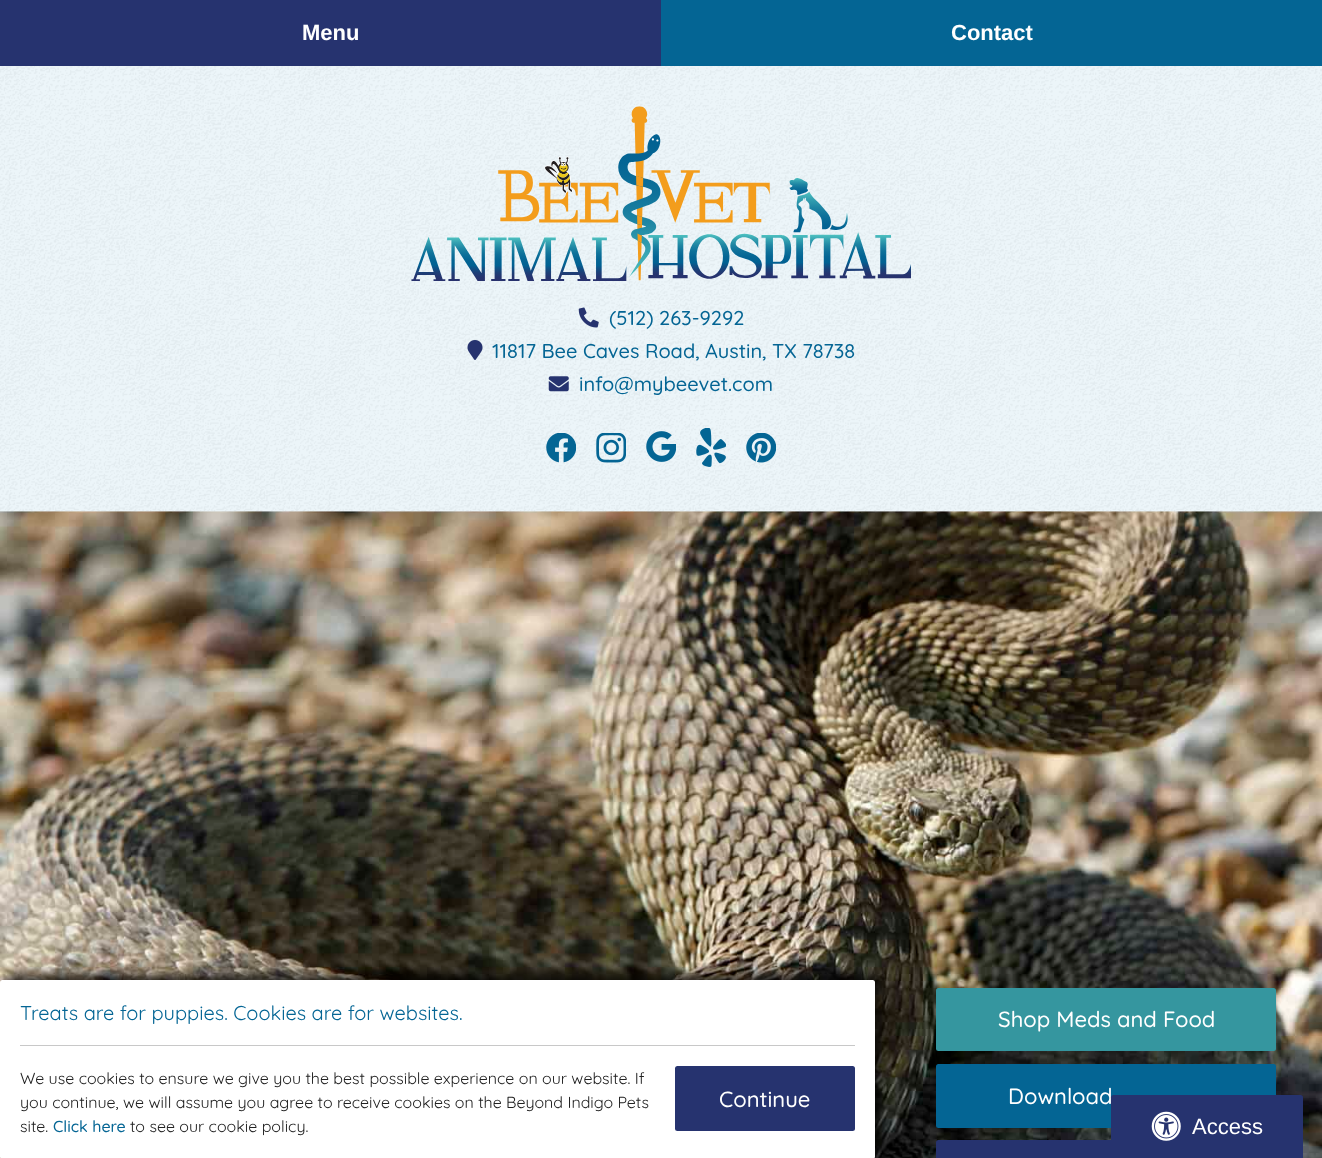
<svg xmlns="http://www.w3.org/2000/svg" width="1322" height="1158">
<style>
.a{font:bold 22px Liberation Sans;fill:#fff}
.b{font:500 20px Quicksand;fill:#046594}
.c{font:500 22px Quicksand;fill:#fff}
.d{font:20px Quicksand;fill:#046594}
.e{font:16px Quicksand;fill:#212121}
.f{font:500 16px Quicksand;fill:#046594}
.g{font:22px Liberation Sans;fill:#fff}
</style>
<rect width="100%" height="100%" fill="#f2fbff"/>
<image href="1.png" x="0" y="66" width="1322" height="446"/>
<path fill="#26336f" d="M0 0h661v66H0z"/>
<path fill="#046594" d="M661 0h661v66H661z"/>
<image href="2.png" x="411" y="106" width="500" height="175"/>
<image href="3.png" x="578" y="307" width="21" height="21"/>
<image href="4.png" x="467" y="340" width="16" height="20"/>
<image href="5.png" x="548" y="376" width="21" height="16"/>
<image href="6.png" x="546" y="433" width="30" height="30"/>
<image href="7.png" x="596" y="433" width="30" height="30"/>
<image href="8.png" x="646" y="431" width="30" height="31"/>
<image href="9.png" x="696" y="428" width="30" height="39"/>
<image href="10.png" x="746" y="433" width="30" height="30"/>
<image href="11.png" x="0" y="511" width="1322" height="647"/>
<rect fill="#35969f" x="936" y="988" width="340" height="63" rx="2.5"/>
<rect fill="#046594" x="936" y="1064" width="340" height="64" rx="2.5"/>
<rect fill="#26336f" x="936" y="1140" width="340" height="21" rx="2.5"/>
<rect fill="#000000bf" filter="blur(6px)" x="6" y="974" width="875" height="179" rx="2.5"/>
<rect fill="#fff" y="980" width="875" height="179" rx="2.5"/>
<path fill="#c8c8c8" d="M20 1045h835v1H20z"/>
<rect fill="#26336f" x="675" y="1066" width="180" height="65" rx="2.5"/>
<text class="a" x="302" y="40">Menu</text>
<text class="a" x="951" y="40">Contact</text>
<text class="b" x="609" y="325">(512) 263-9292</text>
<text class="b" x="492" y="358">11817 Bee Caves Road, Austin, TX 78738</text>
<text class="b" x="579" y="391">info@mybeevet.com</text>
<text class="c" x="998" y="1027">Shop Meds and Food</text>
<text class="c" x="1008" y="1104">Download</text>
<text class="d" x="20" y="1020">Treats are for puppies. Cookies are for websites.</text>
<text class="e" x="20" y="1084">We use cookies to ensure we give you the best possible experience on our website. If</text>
<text class="e" x="20" y="1108">you continue, we will assume you agree to receive cookies on the Beyond Indigo Pets</text>
<text class="e" x="20" y="1132">site.</text>
<text class="f" x="53" y="1132">Click here</text>
<text class="e" x="130" y="1132">to see our cookie policy.</text>
<text class="c" x="719" y="1107">Continue</text>
<path fill="#26336f" d="M1113.5 1095h187c1.5 0 2.5 1 2.5 2.5v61.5h-192v-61.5c0-1.5 1-2.5 2.5-2.5z"/>
<image href="12.png" x="1151" y="1111" width="30" height="30"/>
<text class="g" x="1192" y="1134">Access</text>
</svg>
